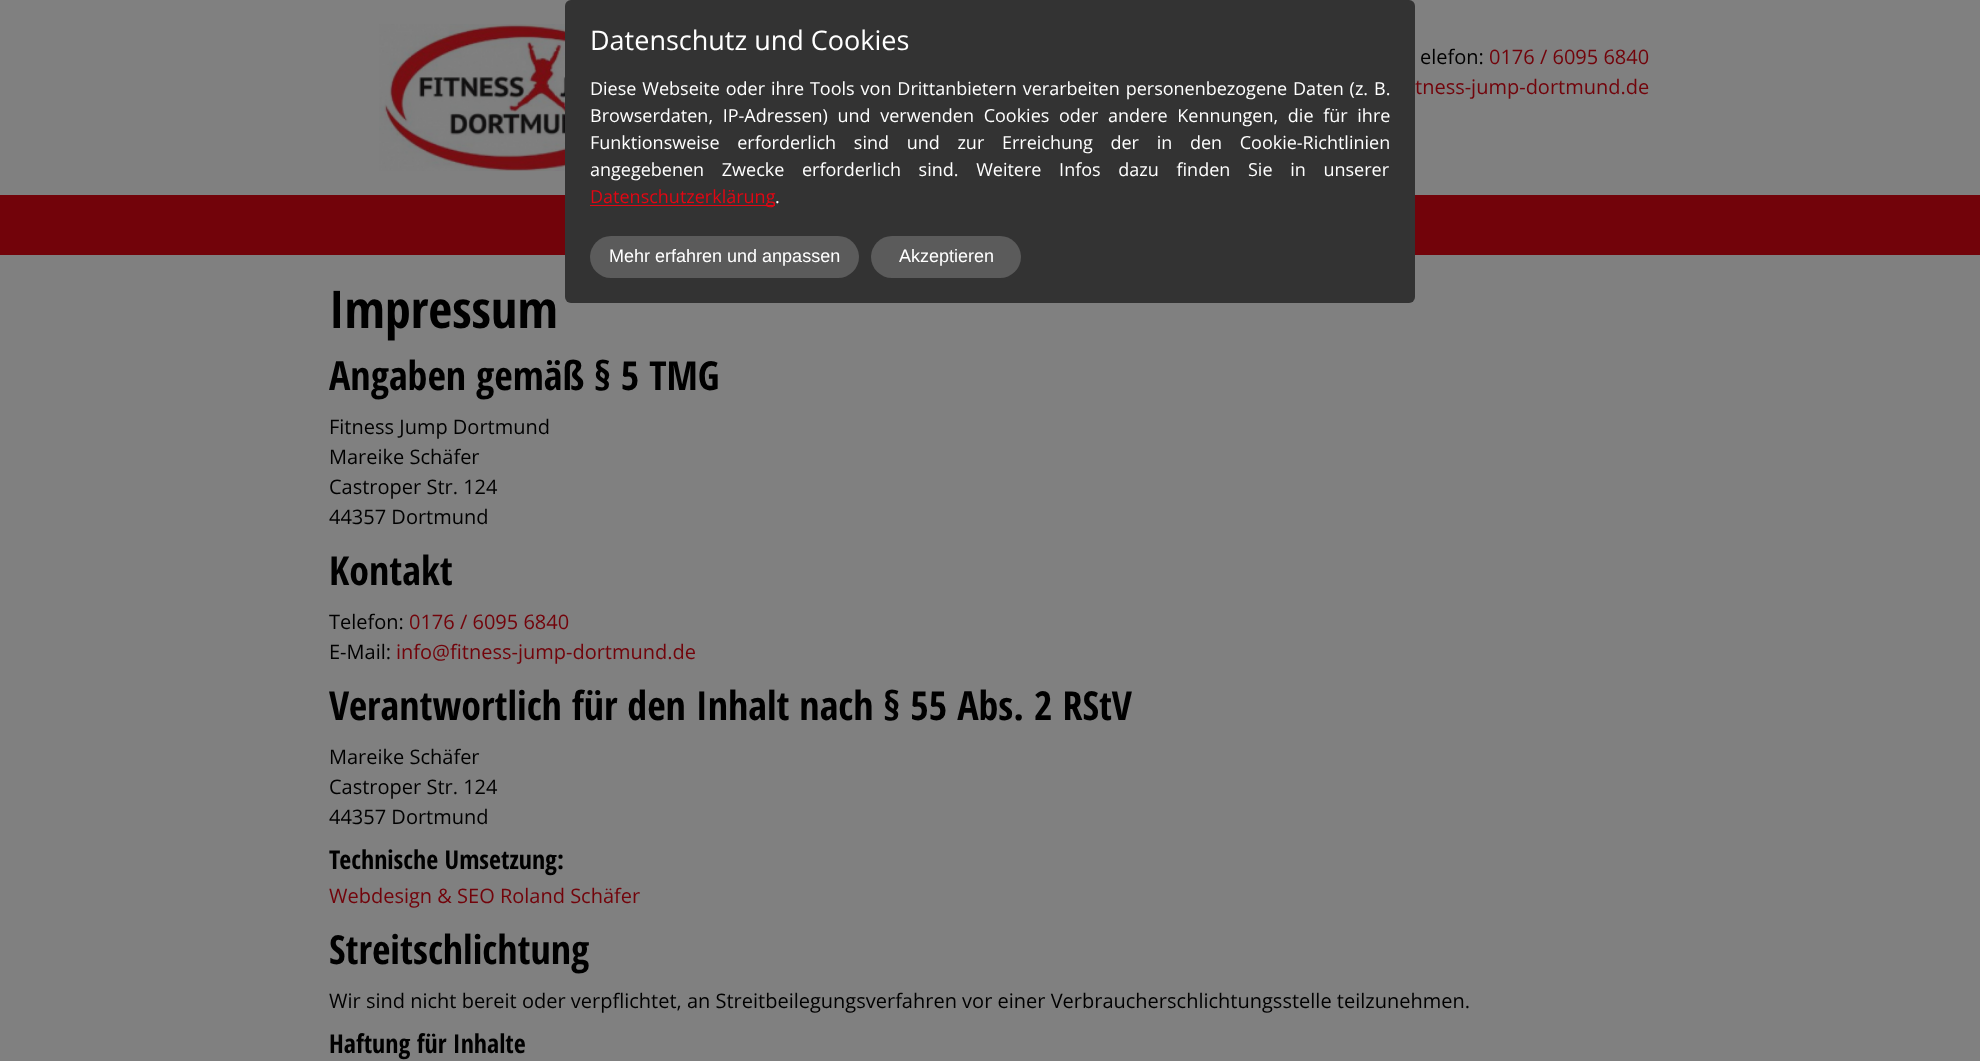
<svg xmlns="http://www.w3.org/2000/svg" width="1980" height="1061">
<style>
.a{font:20px Open Sans;fill:#000}
.b{font:20px Open Sans;fill:#72030a}
.c{font:18px Liberation Sans;fill:#fff}
.d{font:18px Open Sans;fill:#fff}
.e{font:18px Open Sans;fill:#e30613}
.f{font:27px Open Sans;fill:#fff}
.g{font:bold 52px Open Sans Condensed;fill:#000}
.h{font:bold 40px Open Sans Condensed;fill:#000}
.i{font:bold 26px Open Sans Condensed;fill:#000}
</style>
<rect width="100%" height="100%" fill="#808080"/>
<image href="1.png" x="379" y="24" width="186" height="147"/>
<path fill="#72030a" d="M0 195h1980v60H0z"/>
<text class="a" x="1420" y="64">elefon:</text>
<text class="b" x="1489" y="64">0176 / 6095 6840</text>
<text class="b" x="1415" y="94">tness-jump-dortmund.de</text>
<rect fill="#333" x="565" width="850" height="303" rx="6"/>
<rect fill="#5b5b5b" x="590" y="236" width="269" height="42" rx="21"/>
<text class="c" x="609" y="262">Mehr erfahren und anpassen</text>
<rect fill="#5b5b5b" x="871" y="236" width="150" height="42" rx="21"/>
<text class="c" x="899" y="262">Akzeptieren</text>
<text class="d" x="775" y="203">.</text>
<path fill="#e30613" d="M590 205h185v1H590z"/>
<text class="e" x="590" y="203">Datenschutzerklärung</text>
<text class="d" x="590" y="176" word-spacing="13">angegebenen Zwecke erforderlich sind. Weitere Infos dazu finden Sie in unserer</text>
<text class="d" x="590" y="149" word-spacing="13">Funktionsweise erforderlich sind und zur Erreichung der in den Cookie-Richtlinien</text>
<text class="d" x="590" y="122" word-spacing="5">Browserdaten, IP-Adressen) und verwenden Cookies oder andere Kennungen, die für ihre</text>
<text class="d" x="590" y="95" word-spacing="1.25">Diese Webseite oder ihre Tools von Drittanbietern verarbeiten personenbezogene Daten (z. B.</text>
<text class="f" x="590" y="50">Datenschutz und Cookies</text>
<text class="g" x="329" y="328">Impressum</text>
<text class="h" x="329" y="390">Angaben gemäß § 5 TMG</text>
<text class="a" x="329" y="434">Fitness Jump Dortmund</text>
<text class="a" x="329" y="464">Mareike Schäfer</text>
<text class="a" x="329" y="494">Castroper Str. 124</text>
<text class="a" x="329" y="524">44357 Dortmund</text>
<text class="h" x="329" y="585">Kontakt</text>
<text class="a" x="329" y="629">Telefon:</text>
<text class="b" x="409" y="629">0176 / 6095 6840</text>
<text class="a" x="329" y="659">E-Mail:</text>
<text class="b" x="396" y="659">info@fitness-jump-dortmund.de</text>
<text class="h" x="329" y="720">Verantwortlich für den Inhalt nach § 55 Abs. 2 RStV</text>
<text class="a" x="329" y="764">Mareike Schäfer</text>
<text class="a" x="329" y="794">Castroper Str. 124</text>
<text class="a" x="329" y="824">44357 Dortmund</text>
<text class="i" x="329" y="869">Technische Umsetzung:</text>
<text class="b" x="329" y="903">Webdesign &amp; SEO Roland Schäfer</text>
<text class="h" x="329" y="964">Streitschlichtung</text>
<text class="a" x="329" y="1008">Wir sind nicht bereit oder verpflichtet, an Streitbeilegungsverfahren vor einer Verbraucherschlichtungsstelle teilzunehmen.</text>
<text class="i" x="329" y="1053">Haftung für Inhalte</text>
</svg>
